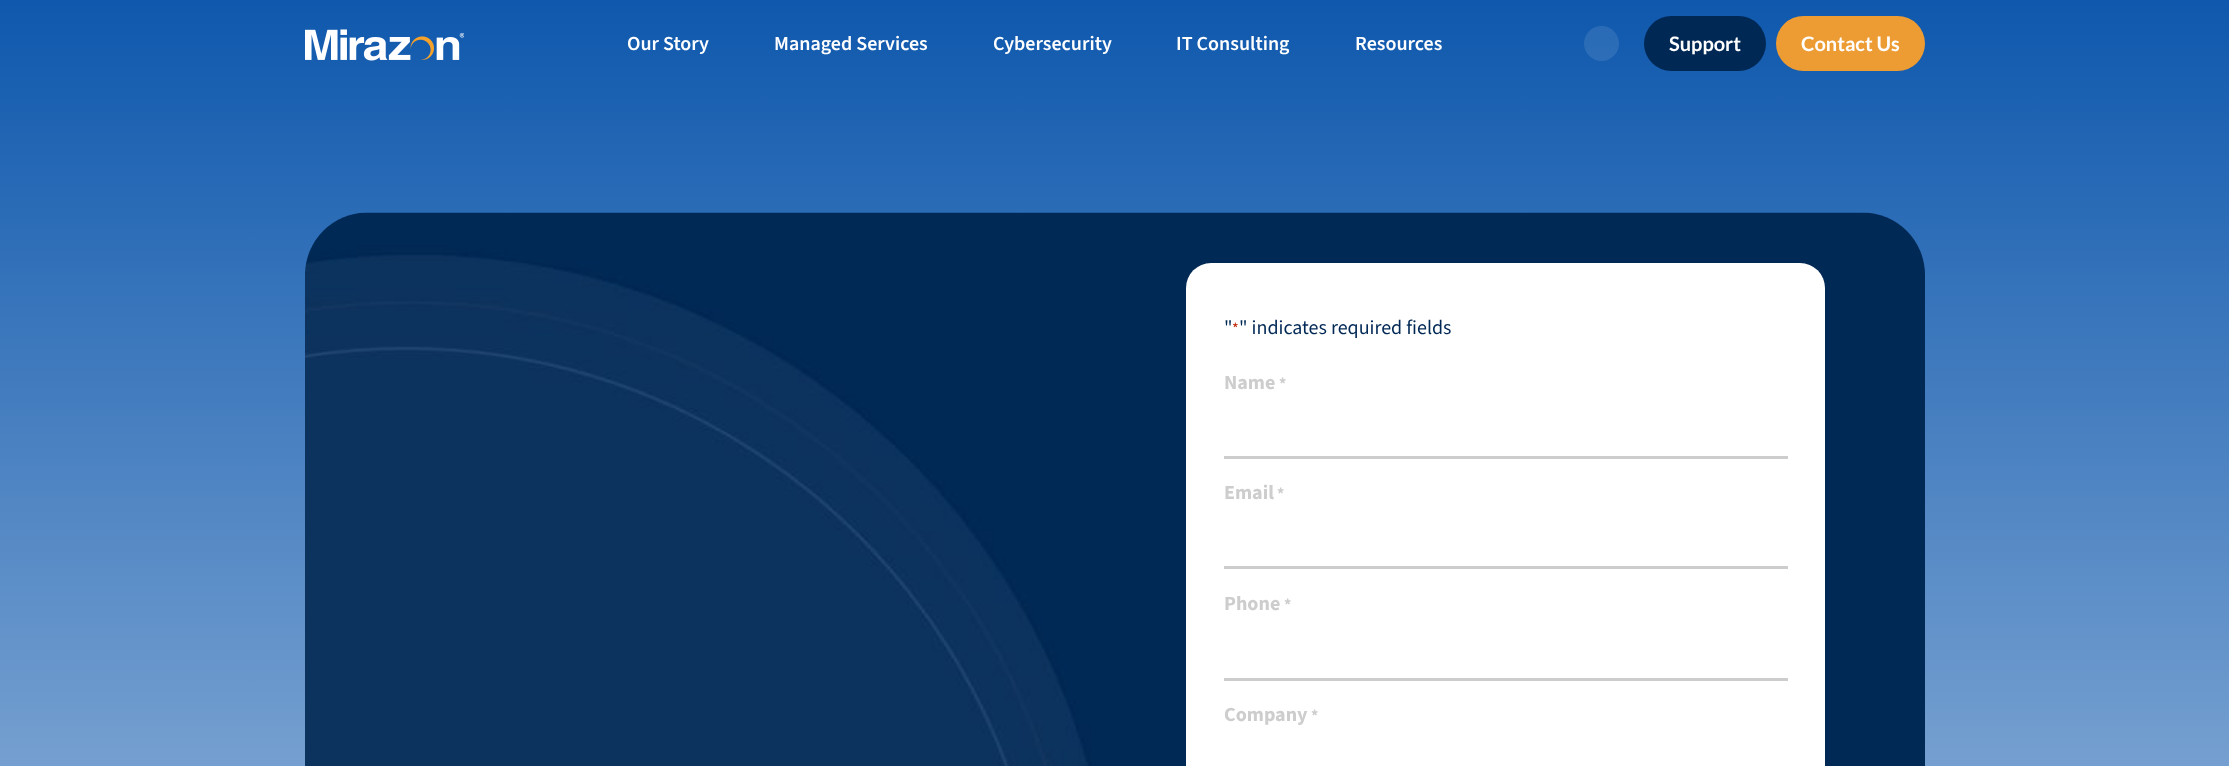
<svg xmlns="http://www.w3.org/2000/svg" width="2229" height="766">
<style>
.a{font:200 20px 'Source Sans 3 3';fill:#fff}
.b{font:bold 20px Lato;fill:#fff}
.c{font:200 20px 'Source Sans 3';fill:#002855}
.d{font:200 16px 'Source Sans 3';fill:#c02b0a}
.e{font:200 20px 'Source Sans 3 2';fill:#cdcdcd}
.f{font:200 16px 'Source Sans 3 2';fill:#cdcdcd}
</style>
<defs>
<linearGradient id="g1" gradientUnits="userSpaceOnUse" x1="1115" y1="-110" x2="1115" y2="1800"><stop offset="0" stop-color="#004ea8"/><stop offset="1" stop-color="#fff"/></linearGradient>
</defs>
<rect width="100%" height="100%" fill="#fff"/>
<path fill="url(#g1)" d="M0 0h2229v766H0z"/>
<image href="1.png" x="305" y="29" width="159" height="32"/>
<circle fill="#ffffff1a" cx="1601.5" cy="43.5" r="17.5"/>
<rect fill="#002855" x="1644" y="16" width="122" height="55" rx="27.5"/>
<rect fill="#ed9b33" x="1776" y="16" width="149" height="55" rx="27.5"/>
<image href="2.png" x="305" y="212" width="1620" height="554"/>
<rect fill="#fff" x="1186" y="263" width="639" height="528" rx="25"/>
<path fill="#cdcdcd" d="M1224 456h564v3H1224z"/>
<path fill="#cdcdcd" d="M1224 566h564v3H1224z"/>
<path fill="#cdcdcd" d="M1224 678h564v3H1224z"/>
<text class="a" x="627" y="50">Our Story</text>
<text class="a" x="774" y="50">Managed Services</text>
<text class="a" x="993" y="50">Cybersecurity</text>
<text class="a" x="1176" y="50">IT Consulting</text>
<text class="a" x="1355" y="50">Resources</text>
<text class="b" x="1669" y="51">Support</text>
<text class="b" x="1801" y="51">Contact Us</text>
<text class="c" x="1224" y="334">"</text>
<text class="d" x="1232" y="334">*</text>
<text class="c" x="1239" y="334">" indicates required fields</text>
<text class="e" x="1224" y="389">Name</text>
<text class="f" x="1279" y="389">*</text>
<text class="e" x="1224" y="499">Email</text>
<text class="f" x="1277" y="499">*</text>
<text class="e" x="1224" y="610">Phone</text>
<text class="f" x="1284" y="610">*</text>
<text class="e" x="1224" y="721">Company</text>
<text class="f" x="1311" y="721">*</text>
</svg>
